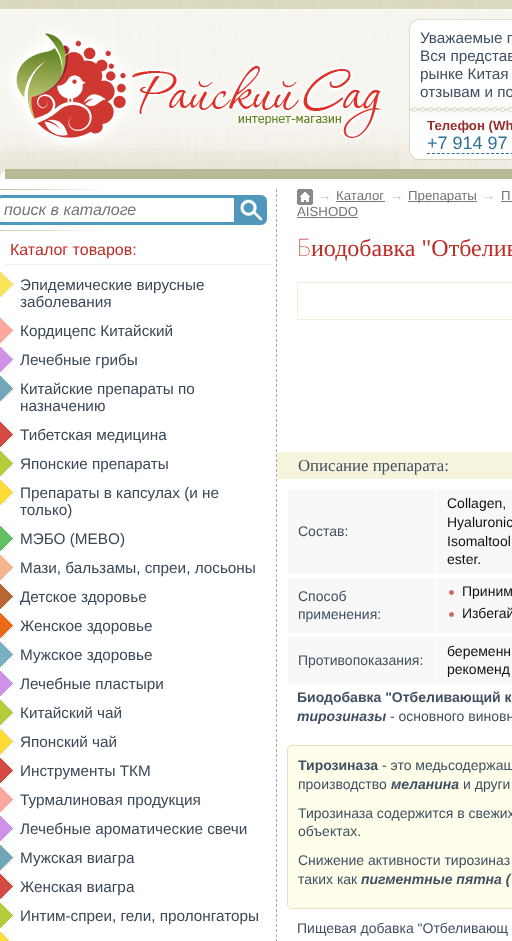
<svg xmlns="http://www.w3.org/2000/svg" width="512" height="941">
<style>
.a{font:15.3px Liberation Sans;fill:#405061}
.b{font:bold 13.25px Liberation Sans;fill:#962f2b}
.c{font:18px Liberation Sans;fill:#2e7397}
.d{font:italic 16px Liberation Sans;fill:#757575}
.e{font:16px Liberation Sans;fill:#bd2d27}
.f{font:15.3px Liberation Sans;fill:#3a4856}
.g{font:italic 13.25px Liberation Sans;fill:#bcbcbc}
.h{font:13.25px Liberation Sans;fill:#757575}
.i{font:100 24px Noto Sans;fill:#bd2d27}
.j{font:24px Liberation Serif;fill:#bd2d27}
.k{font:16.75px Liberation Serif;fill:#405061}
.l{font:14px Liberation Sans;fill:#405061}
.m{font:14px Liberation Sans;fill:#111}
.n{font:bold 14px Liberation Sans;fill:#405061}
.o{font:italic bold 14px Liberation Sans;fill:#405061}
</style>
<rect width="100%" height="100%" fill="#fff"/>
<image href="1.png" x="0" y="169" width="5" height="10"/>
<image href="2.png" x="0" y="9" width="512" height="160"/>
<image href="3.png" x="0" y="0" width="512" height="9"/>
<rect fill="#b9b99540" filter="blur(20px)" x="-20" y="169" width="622" height="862" rx="30"/>
<image href="4.png" x="0" y="19" width="390" height="130"/>
<image href="5.png" x="400" y="19" width="112" height="150"/>
<path fill="none" stroke="#2e7397" stroke-dasharray="3 1.93" d="M427 153.5h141"/>
<path fill="#fff" d="M10 169h502c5.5 0 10 4.5 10 10v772h-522v-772c0-5.5 4.5-10 10-10z"/>
<path fill="#b9b995" d="M5 169h507v10H5z"/>
<path fill="none" stroke="#aaa" stroke-dasharray="3 2" d="M276.5 189v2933"/>
<image href="6.png" x="0" y="189" width="267" height="42"/>
<path fill="#eee" d="M5 264h266v1H5z"/>
<image href="7.png" x="0" y="272" width="15" height="25"/>
<image href="8.png" x="0" y="318" width="15" height="25"/>
<image href="9.png" x="0" y="347" width="15" height="25"/>
<image href="10.png" x="0" y="376" width="15" height="25"/>
<image href="11.png" x="0" y="422" width="15" height="25"/>
<image href="12.png" x="0" y="451" width="15" height="25"/>
<image href="13.png" x="0" y="480" width="15" height="25"/>
<image href="14.png" x="0" y="526" width="15" height="25"/>
<image href="15.png" x="0" y="555" width="15" height="25"/>
<image href="16.png" x="0" y="584" width="15" height="25"/>
<image href="17.png" x="0" y="613" width="15" height="25"/>
<image href="18.png" x="0" y="642" width="15" height="25"/>
<image href="9.png" x="0" y="671" width="15" height="25"/>
<image href="12.png" x="0" y="700" width="15" height="25"/>
<image href="13.png" x="0" y="729" width="15" height="25"/>
<image href="11.png" x="0" y="758" width="15" height="25"/>
<image href="8.png" x="0" y="787" width="15" height="25"/>
<image href="9.png" x="0" y="816" width="15" height="25"/>
<image href="10.png" x="0" y="845" width="15" height="25"/>
<image href="11.png" x="0" y="874" width="15" height="25"/>
<image href="12.png" x="0" y="903" width="15" height="25"/>
<image href="19.png" x="0" y="932" width="11" height="9"/>
<image href="20.png" x="297" y="189" width="16" height="16"/>
<path fill="#7a7a7a" d="M336 201h49v1H336z"/>
<path fill="#7a7a7a" d="M408 201h69v1H408z"/>
<path fill="#7a7a7a" d="M501 201h11v1H501z"/>
<path fill="#7a7a7a" d="M297 217h61v1H297z"/>
<path fill="none" stroke="#f2efd8" d="M297.5 282.5h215v37H297.5z"/>
<path fill="#f7f4dd" d="M277 452h235v27H277z"/>
<path fill="#f8f8f8" d="M288 489h224v195H288z"/>
<path fill="#fff" d="M436 487h1v200H436z"/>
<path fill="#fff" d="M286 574h226v4H286z"/>
<image href="21.png" x="447" y="588" width="9" height="9"/>
<image href="21.png" x="447" y="610" width="9" height="9"/>
<path fill="#fff" d="M286 633h226v4H286z"/>
<rect fill="#fffeeb" stroke="#e4e0c2" x="287.5" y="745.5" width="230" height="163" rx="4.5"/>
<text class="a" x="420" y="43">Уважаемые п</text>
<text class="a" x="420" y="61">Вся представ</text>
<text class="a" x="420" y="79">рынке Китая</text>
<text class="a" x="420" y="97">отзывам и по</text>
<text class="b" x="427" y="130">Телефон (Wh</text>
<text class="c" x="427" y="149">+7 914 97</text>
<text class="d" x="4" y="215">поиск в каталоге</text>
<text class="e" x="10" y="255">Каталог товаров:</text>
<text class="f" x="20" y="290">Эпидемические вирусные</text>
<text class="f" x="20" y="307">заболевания</text>
<text class="f" x="20" y="336">Кордицепс Китайский</text>
<text class="f" x="20" y="365">Лечебные грибы</text>
<text class="f" x="20" y="394">Китайские препараты по</text>
<text class="f" x="20" y="411">назначению</text>
<text class="f" x="20" y="440">Тибетская медицина</text>
<text class="f" x="20" y="469">Японские препараты</text>
<text class="f" x="20" y="498">Препараты в капсулах (и не</text>
<text class="f" x="20" y="515">только)</text>
<text class="f" x="20" y="544">МЭБО (MEBO)</text>
<text class="f" x="20" y="573">Мази, бальзамы, спреи, лосьоны</text>
<text class="f" x="20" y="602">Детское здоровье</text>
<text class="f" x="20" y="631">Женское здоровье</text>
<text class="f" x="20" y="660">Мужское здоровье</text>
<text class="f" x="20" y="689">Лечебные пластыри</text>
<text class="f" x="20" y="718">Китайский чай</text>
<text class="f" x="20" y="747">Японский чай</text>
<text class="f" x="20" y="776">Инструменты ТКМ</text>
<text class="f" x="20" y="805">Турмалиновая продукция</text>
<text class="f" x="20" y="834">Лечебные ароматические свечи</text>
<text class="f" x="20" y="863">Мужская виагра</text>
<text class="f" x="20" y="892">Женская виагра</text>
<text class="f" x="20" y="921">Интим-спреи, гели, пролонгаторы</text>
<text class="g" x="318" y="200">→</text>
<text class="h" x="336" y="200">Каталог</text>
<text class="g" x="390" y="200">→</text>
<text class="h" x="408" y="200">Препараты</text>
<text class="g" x="482" y="200">→</text>
<text class="h" x="501" y="200">П</text>
<text class="h" x="297" y="216">AISHODO</text>
<text class="i" x="297" y="256">Б</text>
<text class="j" x="311" y="256">иодобавка "Отбелив</text>
<text class="k" x="298" y="471">Описание препарата:</text>
<text class="l" x="298" y="536">Состав:</text>
<text class="m" x="447" y="508">Collagen,</text>
<text class="m" x="447" y="527">Hyaluronic</text>
<text class="m" x="447" y="546">Isomaltool</text>
<text class="m" x="447" y="564">ester.</text>
<text class="l" x="298" y="601">Способ</text>
<text class="l" x="298" y="619">применения:</text>
<text class="m" x="462" y="596">Приним</text>
<text class="m" x="462" y="618">Избегай</text>
<text class="l" x="298" y="665">Противопоказания:</text>
<text class="m" x="447" y="656">беременн</text>
<text class="m" x="447" y="674">рекоменд</text>
<text class="n" x="297" y="702">Биодобавка "Отбеливающий к</text>
<text class="o" x="297" y="721">тирозиназы</text>
<text class="l" x="390" y="721">- основного виновн</text>
<text class="n" x="298" y="770">Тирозиназа</text>
<text class="l" x="382" y="770">- это медьсодержащ</text>
<text class="l" x="298" y="789">производство</text>
<text class="o" x="391" y="789">меланина</text>
<text class="l" x="463" y="789">и други</text>
<text class="l" x="298" y="818">Тирозиназа содержится в свежих</text>
<text class="l" x="298" y="836">объектах.</text>
<text class="l" x="298" y="865">Снижение активности тирозиназ</text>
<text class="l" x="298" y="884">таких как</text>
<text class="o" x="361" y="884">пигментные пятна (</text>
<text class="l" x="297" y="933">Пищевая добавка "Отбеливающ</text>
</svg>
